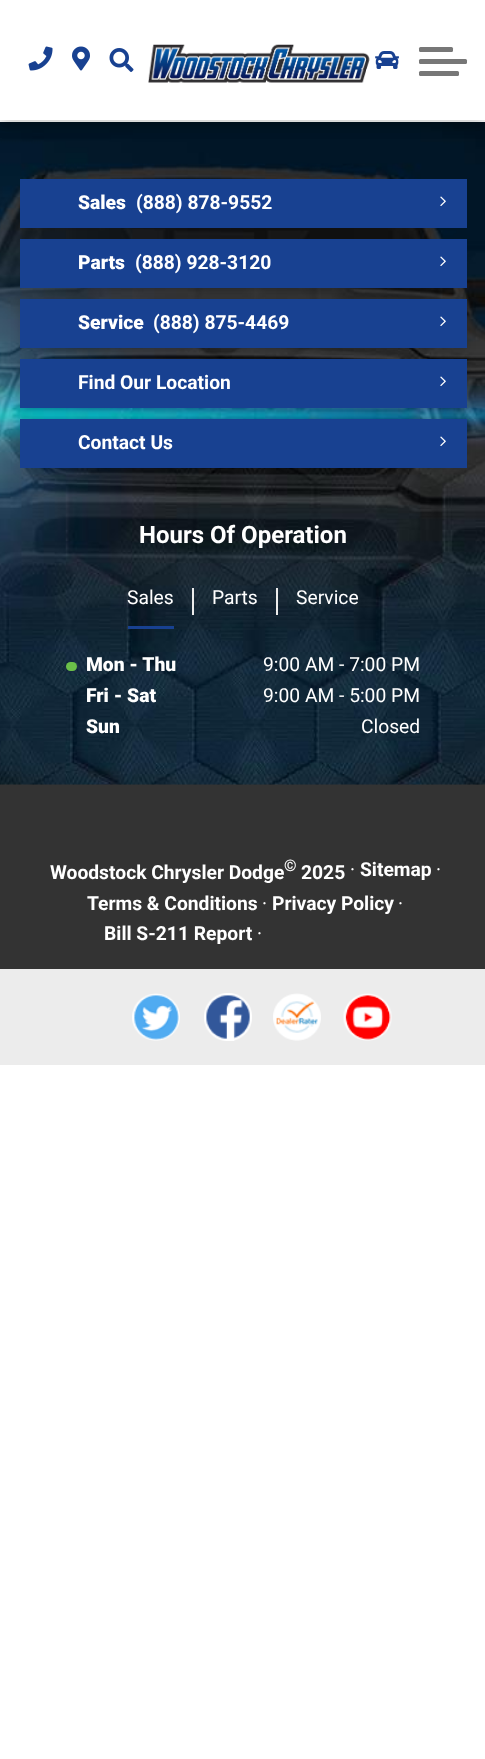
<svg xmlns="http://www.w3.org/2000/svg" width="485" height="1759">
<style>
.a{font:900 19.25px Roboto;fill:#fff}
.b{font:bold 19.25px Roboto;fill:#fff}
.c{font:bold 24px Roboto;fill:#fff}
.d{font:19.25px Roboto;fill:#fff}
.e{font:bold 16px Roboto;fill:#fff}
</style>
<rect width="100%" height="100%" fill="#fff"/>
<path fill="#333" d="M0 784h485v185H0z"/>
<image href="6.png" x="0" y="122" width="485" height="663"/>
<path fill="#00000033" filter="blur(7px)" d="M0 5h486v120H0z"/>
<path fill="#fff" d="M0 120h485v2H0z"/>
<path fill="#00000033" filter="blur(7px)" d="M0 5h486v120H0z"/>
<path fill="#fff" d="M0 0h485v120H0z"/>
<image href="1.png" x="28" y="46" width="25" height="25"/>
<image href="2.png" x="72" y="46" width="18" height="25"/>
<image href="3.png" x="109" y="48" width="25" height="24"/>
<image href="4.png" x="148" y="44" width="222" height="39"/>
<image href="5.png" x="375" y="51" width="24" height="18"/>
<rect fill="#777" x="419" y="59" width="48" height="5" rx="1.5"/>
<rect fill="#777" x="419" y="47" width="34" height="5" rx="1.5"/>
<rect fill="#777" x="419" y="71" width="40" height="5" rx="1.5"/>
<path fill="#184191" d="M20 179h447v49H20z"/>
<image href="7.png" x="440" y="196" width="6" height="10"/>
<path fill="#184191" d="M20 239h447v49H20z"/>
<image href="7.png" x="440" y="256" width="6" height="10"/>
<path fill="#0000001a" filter="blur(5px)" d="M20 302h447v49H20z"/>
<path fill="#184191" d="M20 299h447v49H20z"/>
<image href="7.png" x="440" y="316" width="6" height="10"/>
<path fill="#0000001a" filter="blur(5px)" d="M20 362h447v49H20z"/>
<path fill="#184191" d="M20 359h447v49H20z"/>
<image href="7.png" x="440" y="376" width="6" height="10"/>
<path fill="#0000001a" filter="blur(5px)" d="M20 422h447v49H20z"/>
<path fill="#184191" d="M20 419h447v49H20z"/>
<image href="7.png" x="440" y="436" width="6" height="10"/>
<path fill="#184191" d="M128 626h46v3H128z"/>
<path fill="#ececec" d="M192 588h2v27H192z"/>
<path fill="#ececec" d="M276 588h2v27H276z"/>
<rect fill="#6bbf49" x="66" y="662" width="11" height="9" rx="4.5"/>
<path fill="#ececec" d="M0 969h485v96H0z"/>
<image href="8.png" x="132" y="993" width="48" height="48"/>
<image href="9.png" x="204" y="993" width="48" height="48"/>
<image href="10.png" x="273" y="993" width="48" height="48"/>
<image href="11.png" x="343" y="993" width="49" height="48"/>
<text class="a" x="78" y="209">Sales</text>
<text class="b" x="136" y="209">(888) 878-9552</text>
<text class="a" x="78" y="269">Parts</text>
<text class="b" x="135" y="269">(888) 928-3120</text>
<text class="a" x="78" y="329">Service</text>
<text class="b" x="153" y="329">(888) 875-4469</text>
<text class="b" x="78" y="389">Find Our Location</text>
<text class="b" x="78" y="449">Contact Us</text>
<text class="c" x="139" y="543">Hours Of Operation</text>
<text class="d" x="127" y="604">Sales</text>
<text class="d" x="212" y="604">Parts</text>
<text class="d" x="296" y="604">Service</text>
<text class="a" x="86" y="671">Mon - Thu</text>
<text class="d" x="263" y="671">9:00 AM - 7:00 PM</text>
<text class="a" x="86" y="702">Fri - Sat</text>
<text class="d" x="263" y="702">9:00 AM - 5:00 PM</text>
<text class="a" x="86" y="733">Sun</text>
<text class="d" x="361" y="733">Closed</text>
<text class="b" x="50" y="879">Woodstock Chrysler Dodge</text>
<text class="e" x="284" y="871">©</text>
<text class="b" x="301" y="879">2025</text>
<text class="d" x="350" y="876">·</text>
<text class="b" x="360" y="876">Sitemap</text>
<text class="d" x="436" y="876">·</text>
<text class="b" x="87" y="910">Terms &amp; Conditions</text>
<text class="d" x="262" y="910">·</text>
<text class="b" x="272" y="910">Privacy Policy</text>
<text class="d" x="398" y="910">·</text>
<text class="b" x="104" y="940">Bill S-211 Report</text>
<text class="d" x="257" y="940">·</text>
</svg>
